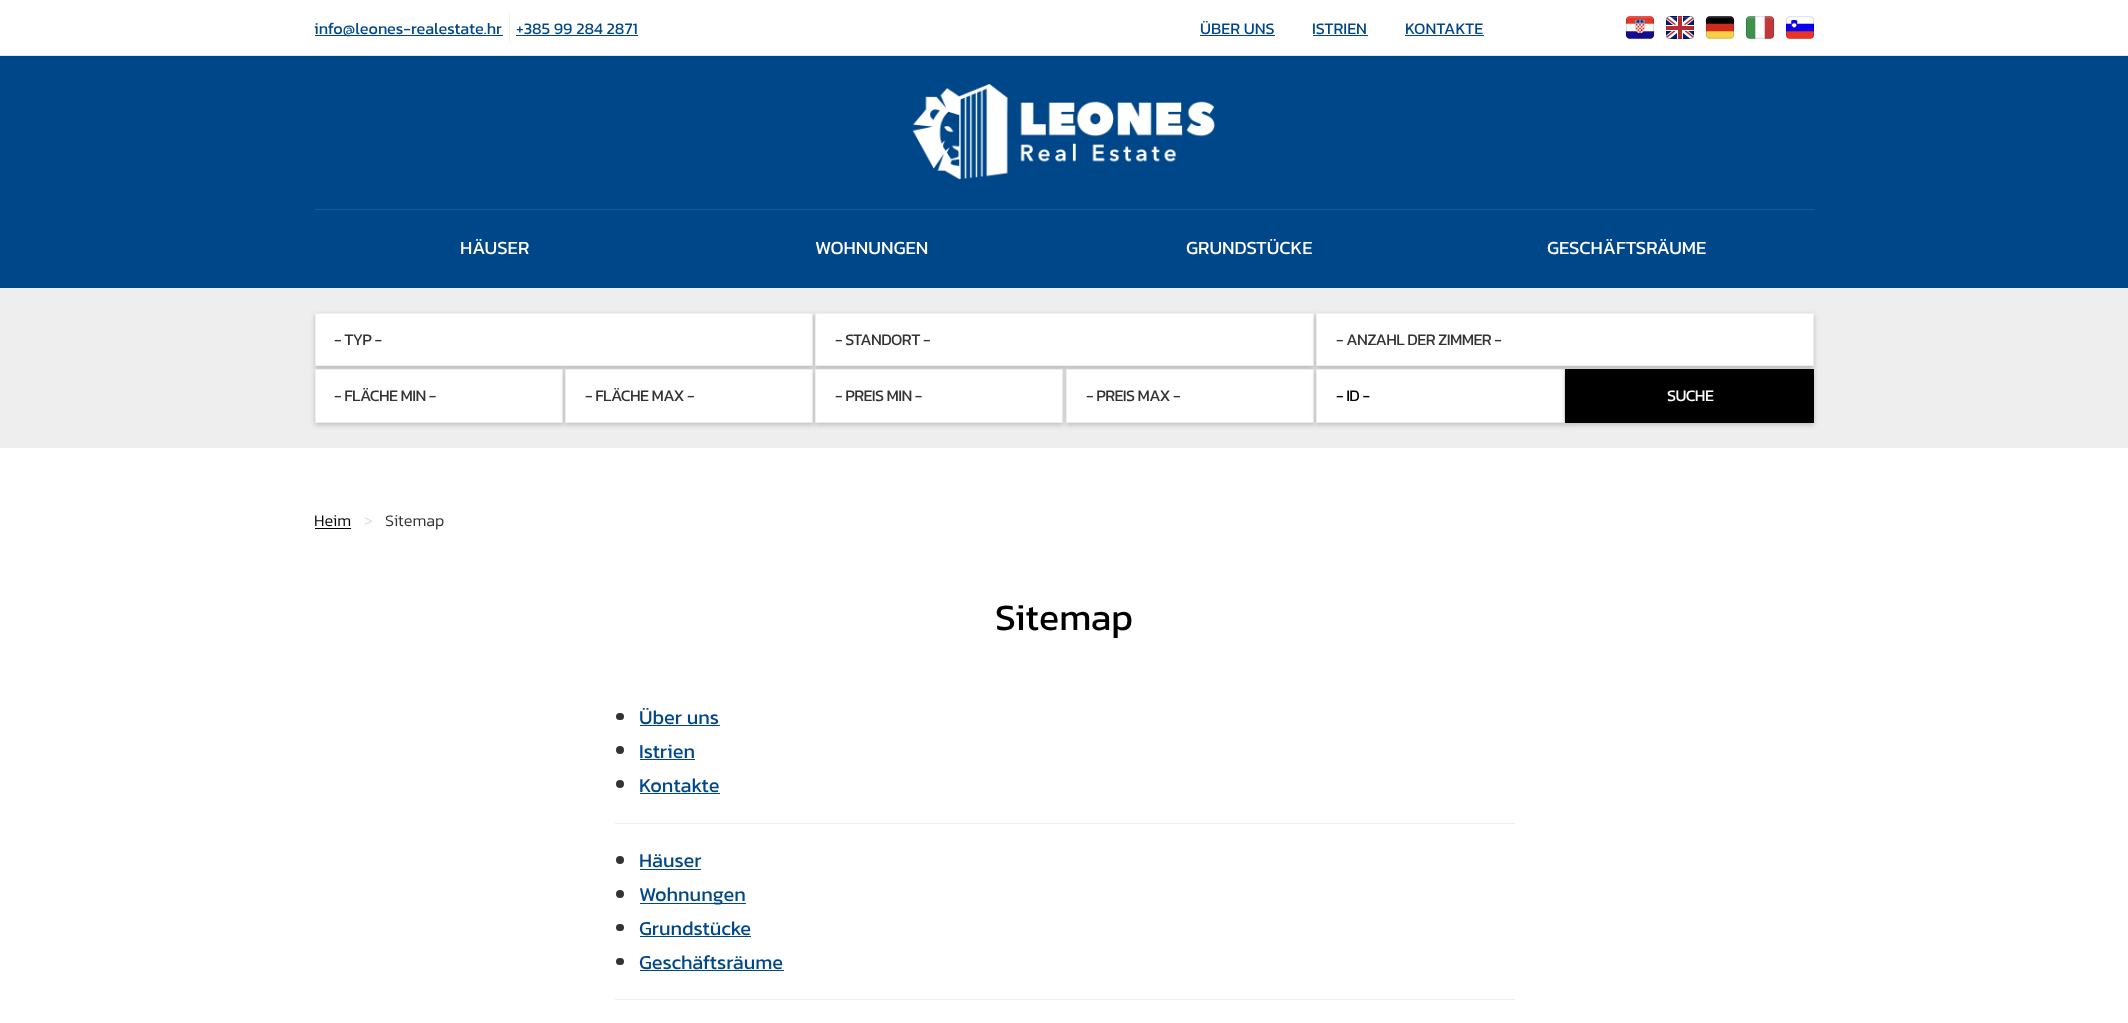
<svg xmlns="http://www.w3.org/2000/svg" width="2128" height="1023">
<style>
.a{font:16.25px Kanit;fill:#004789}
.b{font:18.75px Kanit;fill:#fff}
.c{font:16.25px Kanit;letter-spacing:-0.6px;fill:#333}
.d{font:16.25px Kanit;letter-spacing:-0.6px;fill:#000}
.e{font:16.25px Kanit;letter-spacing:-0.6px;fill:#fff}
.f{font:300 16.25px Kanit;fill:#000}
.g{font:300 16.25px Kanit;fill:#ddd}
.h{font:300 16.25px Kanit;fill:#333}
.i{font:37.5px Kanit;fill:#000}
.j{font:20px Kanit;fill:#004789}
</style>
<rect width="100%" height="100%" fill="#fff"/>
<path fill="#004789" d="M0 56h2128v232H0z"/>
<path fill="#1a5995" d="M315 209h1500v1H315z"/>
<path fill="#004789" d="M1200 35h75v1H1200z"/>
<path fill="#004789" d="M1313 35h55v1H1313z"/>
<path fill="#004789" d="M1405 35h79v1H1405z"/>
<image href="1.png" x="1625" y="16" width="30" height="23"/>
<image href="2.png" x="1666" y="16" width="28" height="23"/>
<image href="3.png" x="1705" y="16" width="30" height="23"/>
<image href="4.png" x="1745" y="16" width="30" height="23"/>
<image href="5.png" x="1785" y="16" width="30" height="23"/>
<image href="6.png" x="912" y="84" width="303" height="96"/>
<path fill="#e6e6e6" d="M0 55h2128v1H0z"/>
<path fill="#004789" d="M315 35h188v1H315z"/>
<path fill="#f2f2f2" d="M509 13h1v31H509z"/>
<path fill="#004789" d="M516 35h122v1H516z"/>
<path fill="#eee" d="M0 288h2128v160H0z"/>
<path fill="#00000033" filter="blur(2.5px)" d="M315 315h498v54H315z"/>
<path fill="#fff" stroke="#eee" d="M315.5 313.5h497v52H315.5z"/>
<path fill="#00000033" filter="blur(2.5px)" d="M815 315h499v54H815z"/>
<path fill="#fff" stroke="#eee" d="M815.5 313.5h498v52H815.5z"/>
<path fill="#00000033" filter="blur(2.5px)" d="M1316 315h498v54H1316z"/>
<path fill="#fff" stroke="#eee" d="M1316.5 313.5h497v52H1316.5z"/>
<path fill="#00000033" filter="blur(2.5px)" d="M315 371h248v54H315z"/>
<path fill="#fff" stroke="#eee" d="M315.5 369.5h247v53H315.5z"/>
<path fill="#00000033" filter="blur(2.5px)" d="M565 371h248v54H565z"/>
<path fill="#fff" stroke="#eee" d="M565.5 369.5h247v53H565.5z"/>
<path fill="#00000033" filter="blur(2.5px)" d="M815 371h248v54H815z"/>
<path fill="#fff" stroke="#eee" d="M815.5 369.5h247v53H815.5z"/>
<path fill="#00000033" filter="blur(2.5px)" d="M1066 371h248v54H1066z"/>
<path fill="#fff" stroke="#eee" d="M1066.5 369.5h247v53H1066.5z"/>
<path fill="#00000033" filter="blur(2.5px)" d="M1316 371h249v54H1316z"/>
<path fill="#fff" stroke="#eee" d="M1316.5 369.5h248v53H1316.5z"/>
<path fill="#00000033" filter="blur(2.5px)" d="M1565 371h249v54H1565z"/>
<path fill="#000" d="M1565 369h249v54H1565z"/>
<path fill="#000" d="M315 528h36v1H315z"/>
<rect fill="#333" x="616" y="713" width="8" height="7" rx="3.5"/>
<path fill="#004789" d="M640 725h80v1H640z"/>
<circle fill="#333" cx="620" cy="750" r="4"/>
<path fill="#004789" d="M640 759h55v1H640z"/>
<circle fill="#333" cx="620" cy="784" r="4"/>
<path fill="#004789" d="M640 793h80v1H640z"/>
<path fill="#eee" d="M615 823h900v1H615z"/>
<circle fill="#333" cx="620" cy="860" r="4"/>
<path fill="#004789" d="M640 869h61v1H640z"/>
<circle fill="#333" cx="620" cy="894" r="4"/>
<path fill="#004789" d="M640 903h106v1H640z"/>
<rect fill="#333" x="616" y="924" width="8" height="7" rx="3.5"/>
<path fill="#004789" d="M640 936h111v1H640z"/>
<rect fill="#333" x="616" y="958" width="8" height="7" rx="3.5"/>
<path fill="#004789" d="M640 970h144v1H640z"/>
<path fill="#eee" d="M615 999h900v1H615z"/>
<text class="a" x="1200" y="34">ÜBER UNS</text>
<text class="a" x="1312" y="34">ISTRIEN</text>
<text class="a" x="1405" y="34">KONTAKTE</text>
<text class="b" x="460" y="254">HÄUSER</text>
<text class="b" x="815" y="254">WOHNUNGEN</text>
<text class="b" x="1186" y="254">GRUNDSTÜCKE</text>
<text class="b" x="1547" y="254">GESCHÄFTSRÄUME</text>
<text class="a" x="314" y="34">info@leones-realestate.hr</text>
<text class="a" x="516" y="34">+385 99 284 2871</text>
<text class="c" x="334" y="345">- TYP -</text>
<text class="c" x="835" y="345">- STANDORT -</text>
<text class="c" x="1336" y="345">- ANZAHL DER ZIMMER -</text>
<text class="c" x="334" y="401">- FLÄCHE MIN -</text>
<text class="c" x="585" y="401">- FLÄCHE MAX -</text>
<text class="c" x="835" y="401">- PREIS MIN -</text>
<text class="c" x="1086" y="401">- PREIS MAX -</text>
<text class="d" x="1336" y="401">- ID -</text>
<text class="e" x="1667" y="401">SUCHE</text>
<text class="f" x="314" y="526">Heim</text>
<text class="g" x="364" y="526">&gt;</text>
<text class="h" x="385" y="526">Sitemap</text>
<text class="i" x="995" y="630">Sitemap</text>
<text class="j" x="639" y="724">Über uns</text>
<text class="j" x="639" y="758">Istrien</text>
<text class="j" x="639" y="792">Kontakte</text>
<text class="j" x="639" y="867">Häuser</text>
<text class="j" x="639" y="901">Wohnungen</text>
<text class="j" x="639" y="935">Grundstücke</text>
<text class="j" x="639" y="969">Geschäftsräume</text>
</svg>
